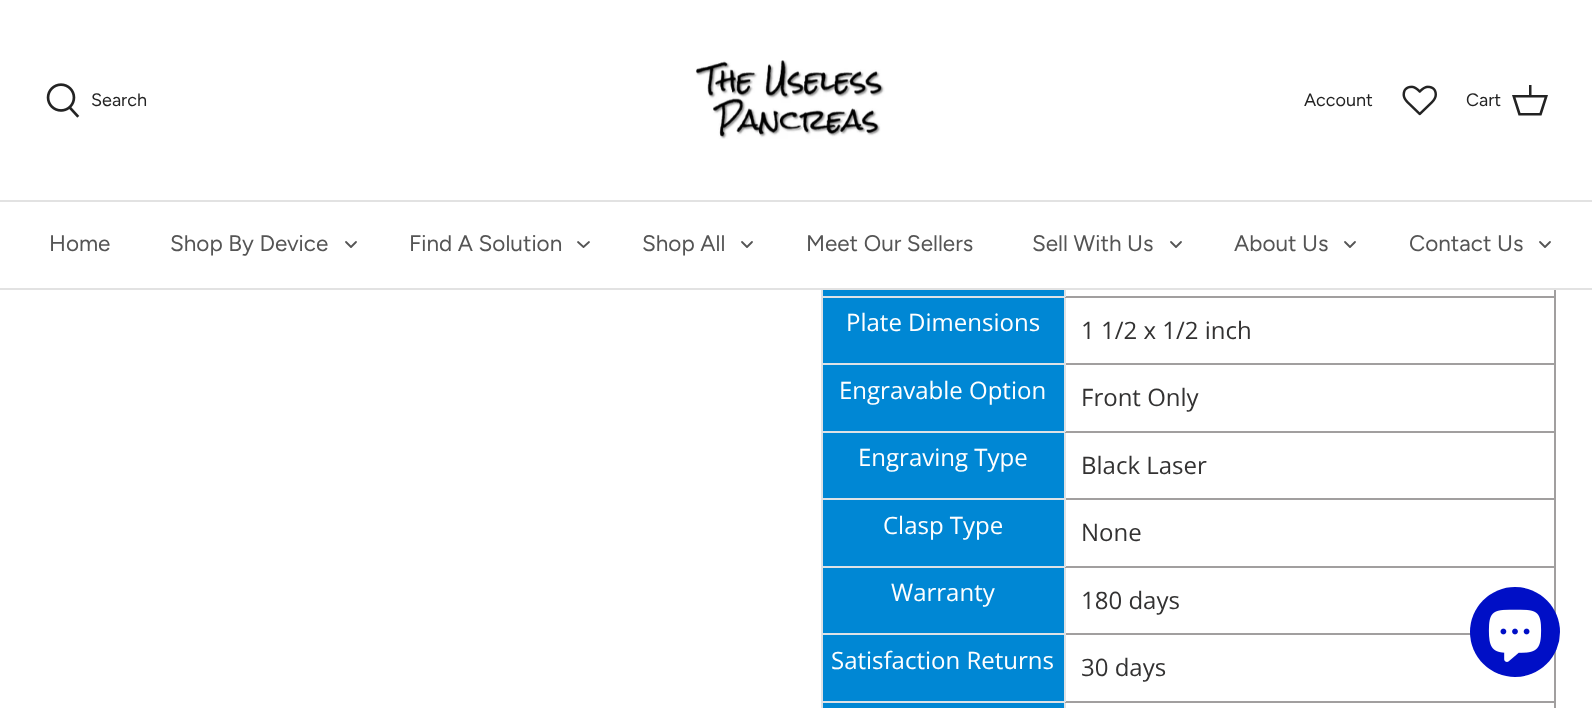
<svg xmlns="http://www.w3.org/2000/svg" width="1592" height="708">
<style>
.a{font:18px Figtree;fill:#232323}
.b{font:22.5px Figtree;fill:#555}
.c{font:24px Open Sans;fill:#fff}
.d{font:24px Open Sans;fill:#333232}
</style>
<rect width="100%" height="100%" fill="#fff"/>
<path fill="#e2e2e2" d="M0 200h1592v2H0z"/>
<image href="1.png" x="46" y="83" width="34" height="35"/>
<image href="2.png" x="695" y="60" width="190" height="79"/>
<image href="3.png" x="1402" y="85" width="35" height="31"/>
<path fill="#232323" d="M1529 95v-10h2.5v10h16.5l-6.5 20.5h-23l-6.5-20.5zm-13.5 2.5l5 15.5h19l5-15.5z"/>
<path fill="#e2e2e2" d="M0 288h1592v2H0z"/>
<path fill="none" stroke="#555" stroke-width="1.8" stroke-linecap="round" stroke-linejoin="round" d="M346 242l5 5l5-5"/>
<path fill="none" stroke="#555" stroke-width="1.8" stroke-linecap="round" stroke-linejoin="round" d="M578 242l5.5 5l5.5-5"/>
<path fill="none" stroke="#555" stroke-width="1.8" stroke-linecap="round" stroke-linejoin="round" d="M742 242l5 5l5-5"/>
<path fill="none" stroke="#555" stroke-width="1.8" stroke-linecap="round" stroke-linejoin="round" d="M1171 242l5 5l5-5"/>
<path fill="none" stroke="#555" stroke-width="1.8" stroke-linecap="round" stroke-linejoin="round" d="M1345 242l5 5l5-5"/>
<path fill="none" stroke="#555" stroke-width="1.8" stroke-linecap="round" stroke-linejoin="round" d="M1540 242l5 5l5-5"/>
<path fill="#0087d4" d="M821 703h244v5H821z"/>
<path fill="#dee2e6" d="M821 290h2v418H821z"/>
<path fill="#0087d4" d="M823 290h241v6H823z"/>
<path fill="#dee2e6" d="M821 363h244v2H821z"/>
<path fill="#dee2e6" d="M821 498h244v2H821z"/>
<path fill="#dee2e6" d="M821 633h244v2H821z"/>
<path fill="#dee2e6" d="M1064 701h2v7H1064z"/>
<path fill="#a19f9f" d="M1554 650h2v58H1554z"/>
<path fill="#a19f9f" d="M1064 701h492v2H1064z"/>
<path fill="#dee2e6" d="M1064 633h2v69H1064z"/>
<path fill="#a19f9f" d="M1064 633h407v2H1064z"/>
<path fill="#dee2e6" d="M1064 566h2v69H1064z"/>
<path fill="#a19f9f" d="M1554 290h2v324H1554z"/>
<path fill="#a19f9f" d="M1064 566h492v2H1064z"/>
<path fill="#dee2e6" d="M1064 498h2v69H1064z"/>
<path fill="#a19f9f" d="M1064 498h492v2H1064z"/>
<path fill="#dee2e6" d="M1064 431h2v69H1064z"/>
<path fill="#a19f9f" d="M1064 431h492v2H1064z"/>
<path fill="#dee2e6" d="M1064 363h2v69H1064z"/>
<path fill="#a19f9f" d="M1064 363h492v2H1064z"/>
<path fill="#dee2e6" d="M1064 296h2v69H1064z"/>
<path fill="#a19f9f" d="M1064 296h492v2H1064z"/>
<path fill="#dee2e6" d="M1064 290h2v7H1064z"/>
<path fill="#dee2e6" d="M821 296h244v2H821z"/>
<path fill="#0087d4" d="M823 298h241v65H823z"/>
<path fill="#0087d4" d="M823 365h241v66H823z"/>
<path fill="#dee2e6" d="M821 431h244v2H821z"/>
<path fill="#0087d4" d="M823 433h241v65H823z"/>
<path fill="#0087d4" d="M823 500h241v66H823z"/>
<path fill="#dee2e6" d="M821 566h244v2H821z"/>
<path fill="#0087d4" d="M823 568h241v65H823z"/>
<path fill="#0087d4" d="M823 635h241v66H823z"/>
<path fill="#dee2e6" d="M821 701h244v2H821z"/>
<circle fill="#000fc6" cx="1515" cy="632" r="45"/>
<image href="4.png" x="1488" y="609" width="54" height="53"/>
<text class="a" x="91" y="106">Search</text>
<text class="a" x="1304" y="106">Account</text>
<text class="a" x="1466" y="106">Cart</text>
<text class="b" x="49" y="251">Home</text>
<text class="b" x="170" y="251">Shop By Device</text>
<text class="b" x="409" y="251">Find A Solution</text>
<text class="b" x="642" y="251">Shop All</text>
<text class="b" x="806" y="251">Meet Our Sellers</text>
<text class="b" x="1032" y="251">Sell With Us</text>
<text class="b" x="1234" y="251">About Us</text>
<text class="b" x="1409" y="251">Contact Us</text>
<text class="c" x="846" y="331">Plate Dimensions</text>
<text class="d" x="1081" y="339">1 1/2 x 1/2 inch</text>
<text class="c" x="839" y="399">Engravable Option</text>
<text class="d" x="1081" y="406">Front Only</text>
<text class="c" x="858" y="466">Engraving Type</text>
<text class="d" x="1081" y="474">Black Laser</text>
<text class="c" x="883" y="534">Clasp Type</text>
<text class="d" x="1081" y="541">None</text>
<text class="c" x="891" y="601">Warranty</text>
<text class="d" x="1081" y="609">180 days</text>
<text class="c" x="831" y="669">Satisfaction Returns</text>
<text class="d" x="1081" y="676">30 days</text>
</svg>
